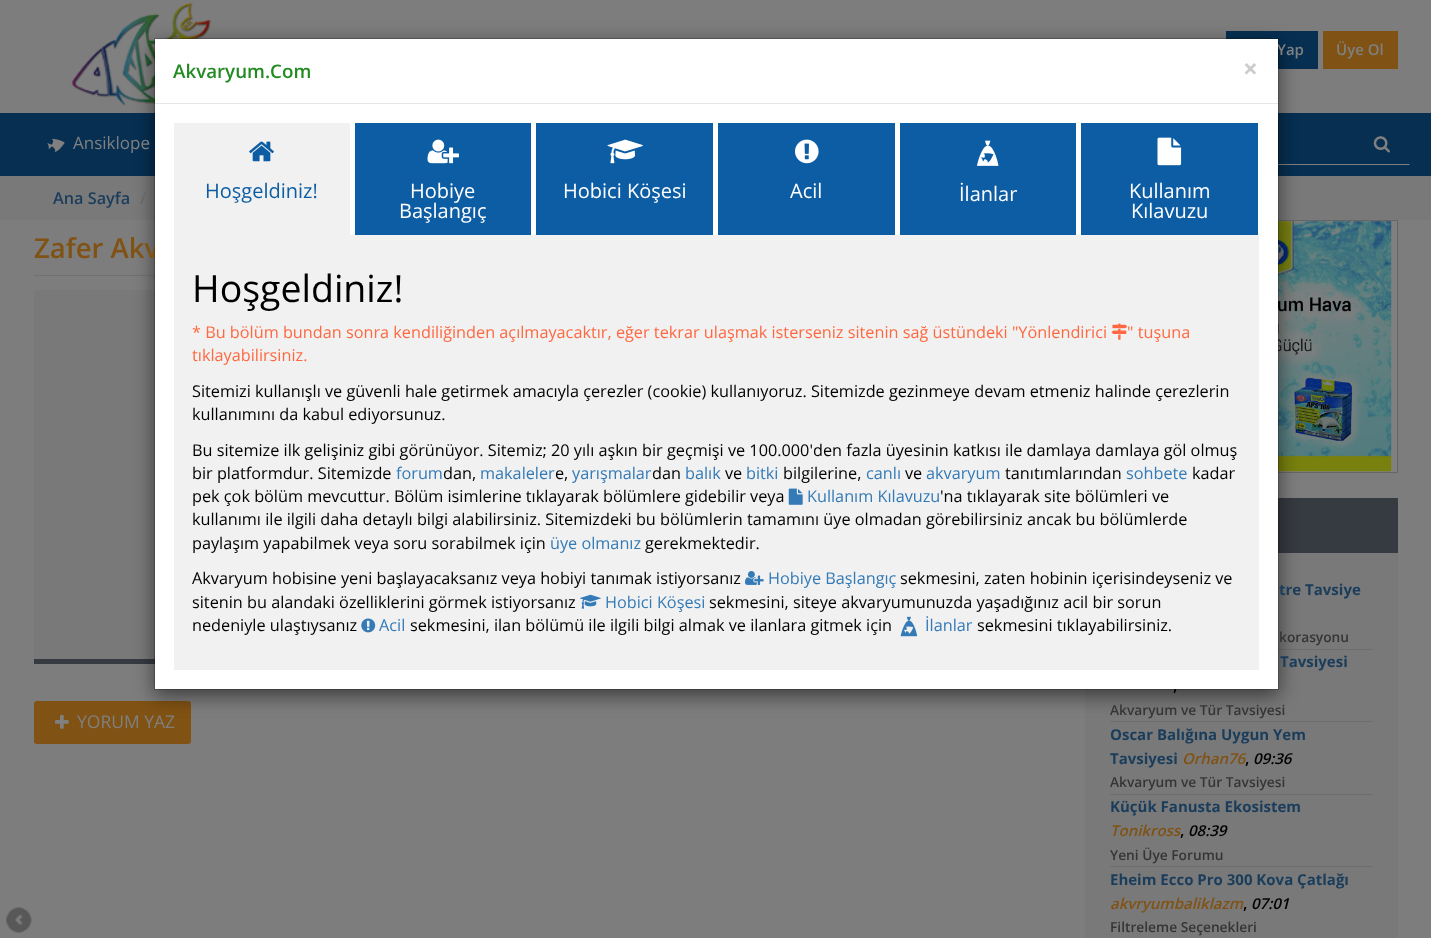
<svg xmlns="http://www.w3.org/2000/svg" width="1431" height="938">
<style>
.a{font:600 15px Open Sans;fill:#808080}
.b{font:17px Open Sans;fill:#808080}
.c{font:600 16.25px Open Sans;fill:#1a3d5c}
.d{font:600 16.25px Open Sans;fill:#666}
.e{font:600 27.5px Open Sans;fill:#805213}
.f{font:17.5px Open Sans;fill:#808080}
.g{font:bold 15px Open Sans;fill:#1a3d5c}
.h{font:600 13.75px Open Sans;fill:#353535}
.i{font:600 16.25px Open Sans;fill:#000}
.j{font:16.25px Open Sans;fill:#000}
.k{font:16.25px Open Sans;fill:#337ab7}
.l{font:16.25px Open Sans;fill:#ff6840}
.m{font:37.5px Open Sans;fill:#000}
.n{font:20px Open Sans;fill:#fff}
.o{font:20px Open Sans;fill:#0c5da4}
.p{font:bold 26px Open Sans;fill:#ccc}
.q{font:600 18.75px Open Sans;fill:#228b22}
.r{font:italic 600 15px Open Sans;fill:#805213}
.s{font:italic 600 15px Open Sans;fill:#000}
</style>
<rect width="100%" height="100%" fill="#7d7d7d"/>
<image href="1.png" x="71" y="2" width="141" height="104"/>
<path fill="#062f52" d="M1226 31h92v38H1226z"/>
<path fill="#805213" d="M1323 31h75v38H1323z"/>
<path fill="#062f52" d="M0 113h1431v63H0z"/>
<image href="2.png" x="47" y="138" width="18" height="15"/>
<path fill="#808080" d="M1410 165h-55l1-1h53z"/>
<path fill="#808080" d="M1278 164h78v1H1278z"/>
<image href="3.png" x="1373" y="136" width="17" height="17"/>
<path fill="#797979" d="M0 176h1431v44H0z"/>
<path fill="#717171" d="M34 275h121v1H34z"/>
<path fill="#797979" d="M34 290h121v369H34z"/>
<path fill="#363a41" d="M34 659h121v5H34z"/>
<rect fill="#805213" x="34" y="701" width="157" height="43" rx="3"/>
<path fill="#808080" d="M1278 221h119v251H1278z"/>
<path fill="none" stroke="#666" d="M1085.5 220.5h312v252H1085.5z"/>
<image href="18.png" x="1278" y="221" width="114" height="251"/>
<path fill="#797979" d="M1085 553h313v385H1085z"/>
<path fill="#363a41" d="M1278 498h120v55H1278z"/>
<path fill="#6e6e6e" d="M1278 649h95v1H1278z"/>
<path fill="#6e6e6e" d="M1110 721h263v1H1110z"/>
<path fill="#00000080" filter="blur(9.5px)" d="M154 44h1125v652H154z"/>
<image href="16.png" x="6" y="907" width="26" height="26"/>
<image href="17.png" x="55" y="715" width="14" height="14"/>
<path fill="#6e6e6e" d="M1110 794h263v1H1110z"/>
<path fill="#6e6e6e" d="M1110 866h263v1H1110z"/>
<text class="a" x="1277" y="55">Yap</text>
<text class="a" x="1336" y="55">Üye Ol</text>
<text class="b" x="73" y="149">Ansiklope</text>
<text class="c" x="53" y="204">Ana Sayfa</text>
<text class="d" x="140" y="204">/</text>
<text class="e" x="34" y="258">Zafer Akv</text>
<path fill="#fff" d="M155 39h1123v650H155z"/>
<text class="f" x="77" y="728">YORUM YAZ</text>
<text class="g" x="1279" y="595">tre Tavsiye</text>
<text class="h" x="1279" y="642">korasyonu</text>
<text class="g" x="1280" y="667">Tavsiyesi</text>
<text class="i" x="1173" y="691">,</text>
<path fill="none" stroke="#00000033" d="M154.5 38.5h1124v651H154.5z"/>
<path fill="#f1f1f1" d="M174 235h1085v435H174z"/>
<text class="j" x="977" y="631">sekmesini tıklayabilirsiniz.</text>
<text class="k" x="925" y="631">İlanlar</text>
<image href="15.png" x="900" y="616" width="18" height="21"/>
<text class="j" x="410" y="631">sekmesini, ilan bölümü ile ilgili bilgi almak ve ilanlara gitmek için</text>
<text class="k" x="379" y="631">Acil</text>
<image href="14.png" x="361" y="618" width="15" height="15"/>
<text class="j" x="192" y="631">nedeniyle ulaştıysanız</text>
<text class="j" x="709" y="608">sekmesini, siteye akvaryumunuzda yaşadığınız acil bir sorun</text>
<text class="k" x="605" y="608">Hobici Köşesi</text>
<image href="13.png" x="580" y="594" width="21" height="15"/>
<text class="j" x="192" y="608">sitenin bu alandaki özelliklerini görmek istiyorsanız</text>
<text class="j" x="900" y="584">sekmesini, zaten hobinin içerisindeyseniz ve</text>
<text class="k" x="768" y="584">Hobiye Başlangıç</text>
<image href="12.png" x="745" y="571" width="19" height="14"/>
<text class="j" x="192" y="584">Akvaryum hobisine yeni başlayacaksanız veya hobiyi tanımak istiyorsanız</text>
<text class="j" x="645" y="549">gerekmektedir.</text>
<text class="k" x="550" y="549">üye olmanız</text>
<text class="j" x="192" y="549">paylaşım yapabilmek veya soru sorabilmek için</text>
<text class="j" x="192" y="525">kullanımı ile ilgili daha detaylı bilgi alabilirsiniz. Sitemizdeki bu bölümlerin tamamını üye olmadan görebilirsiniz ancak bu bölümlerde</text>
<text class="j" x="940" y="502">'na tıklayarak site bölümleri ve</text>
<text class="k" x="807" y="502">Kullanım Kılavuzu</text>
<image href="11.png" x="788" y="488" width="15" height="17"/>
<text class="j" x="192" y="502">pek çok bölüm mevcuttur. Bölüm isimlerine tıklayarak bölümlere gidebilir veya</text>
<text class="j" x="1192" y="479">kadar</text>
<text class="k" x="1126" y="479">sohbete</text>
<text class="j" x="1005" y="479">tanıtımlarından</text>
<text class="k" x="926" y="479">akvaryum</text>
<text class="j" x="905" y="479">ve</text>
<text class="k" x="866" y="479">canlı</text>
<text class="j" x="783" y="479">bilgilerine,</text>
<text class="k" x="746" y="479">bitki</text>
<text class="j" x="725" y="479">ve</text>
<text class="k" x="685" y="479">balık</text>
<text class="j" x="652" y="479">dan</text>
<text class="k" x="572" y="479">yarışmalar</text>
<text class="j" x="555" y="479">e,</text>
<text class="k" x="480" y="479">makaleler</text>
<text class="j" x="443" y="479">dan,</text>
<text class="k" x="396" y="479">forum</text>
<text class="j" x="192" y="479">bir platformdur. Sitemizde</text>
<text class="j" x="192" y="456">Bu sitemize ilk gelişiniz gibi görünüyor. Sitemiz; 20 yılı aşkın bir geçmişi ve 100.000'den fazla üyesinin katkısı ile damlaya damlaya göl olmuş</text>
<text class="j" x="192" y="420">kullanımını da kabul ediyorsunuz.</text>
<text class="j" x="192" y="397">Sitemizi kullanışlı ve güvenli hale getirmek amacıyla çerezler (cookie) kullanıyoruz. Sitemizde gezinmeye devam etmeniz halinde çerezlerin</text>
<text class="l" x="192" y="361">tıklayabilirsiniz.</text>
<text class="l" x="1127" y="338">" tuşuna</text>
<image href="10.png" x="1111" y="323" width="17" height="17"/>
<text class="l" x="192" y="338">* Bu bölüm bundan sonra kendiliğinden açılmayacaktır, eğer tekrar ulaşmak isterseniz sitenin sağ üstündeki "Yönlendirici</text>
<text class="m" x="192" y="302">Hoşgeldiniz!</text>
<path fill="#0c5da4" d="M1081 123h177v112H1081z"/>
<text class="n" x="1131" y="218">Kılavuzu</text>
<text class="n" x="1129" y="198">Kullanım</text>
<image href="9.png" x="1157" y="137" width="25" height="29"/>
<path fill="#0c5da4" d="M900 123h176v112H900z"/>
<text class="n" x="959" y="201">İlanlar</text>
<image href="8.png" x="976" y="140" width="23" height="26"/>
<path fill="#0c5da4" d="M718 123h177v112H718z"/>
<text class="n" x="790" y="198">Acil</text>
<image href="7.png" x="795" y="139" width="24" height="25"/>
<path fill="#0c5da4" d="M536 123h177v112H536z"/>
<text class="n" x="563" y="198">Hobici Köşesi</text>
<image href="6.png" x="607" y="139" width="36" height="25"/>
<path fill="#0c5da4" d="M355 123h176v112H355z"/>
<text class="n" x="399" y="218">Başlangıç</text>
<text class="n" x="410" y="198">Hobiye</text>
<image href="5.png" x="427" y="139" width="32" height="25"/>
<path fill="#f1f1f1" d="M174 123h176v112H174z"/>
<text class="o" x="205" y="198">Hoşgeldiniz!</text>
<image href="4.png" x="249" y="141" width="25" height="21"/>
<text class="p" x="1243" y="78">×</text>
<text class="q" x="173" y="78">Akvaryum.Com</text>
<path fill="#e5e5e5" d="M155 103h1123v1H155z"/>
<text class="h" x="1110" y="715">Akvaryum ve Tür Tavsiyesi</text>
<text class="g" x="1110" y="740">Oscar Balığına Uygun Yem</text>
<text class="g" x="1110" y="764">Tavsiyesi</text>
<text class="r" x="1182" y="764">Orhan76</text>
<text class="i" x="1245" y="764">,</text>
<text class="s" x="1253" y="764">09:36</text>
<text class="h" x="1110" y="787">Akvaryum ve Tür Tavsiyesi</text>
<text class="g" x="1110" y="812">Küçük Fanusta Ekosistem</text>
<text class="r" x="1110" y="836">Tonikross</text>
<text class="i" x="1180" y="836">,</text>
<text class="s" x="1188" y="836">08:39</text>
<text class="h" x="1110" y="860">Yeni Üye Forumu</text>
<text class="g" x="1110" y="885">Eheim Ecco Pro 300 Kova Çatlağı</text>
<text class="r" x="1110" y="909">akvryumbaliklazm</text>
<text class="i" x="1243" y="909">,</text>
<text class="s" x="1251" y="909">07:01</text>
<text class="h" x="1110" y="932">Filtreleme Seçenekleri</text>
</svg>
